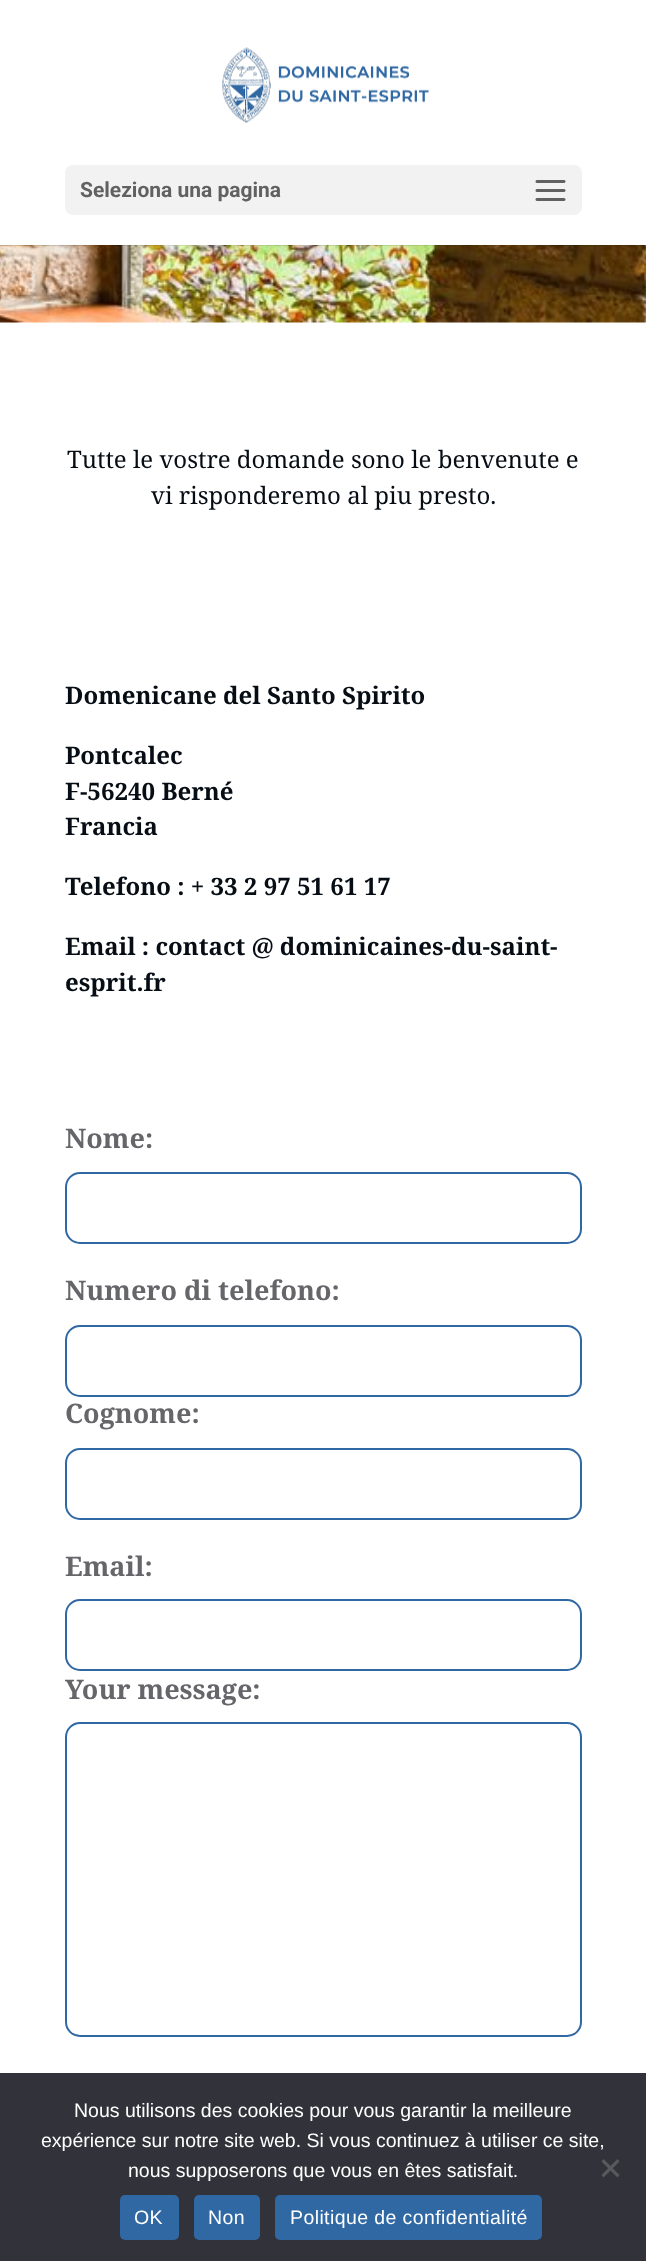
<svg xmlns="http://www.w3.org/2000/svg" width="646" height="2261">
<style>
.a{font:bold 21px Roboto;fill:#616161}
.b{font:24px Noto Serif;fill:#060d14}
.c{font:bold 24px Noto Serif;fill:#060d14}
.d{font:bold 27px Noto Serif;fill:#66666a}
.e{font:19.5px Liberation Sans;fill:#fff}
.f{font:19.5px Liberation Sans;letter-spacing:0.4px;fill:#fff}
</style>
<rect width="100%" height="100%" fill="#fff"/>
<image href="3.png" x="0" y="245" width="646" height="78"/>
<path fill="#0000004d" filter="blur(45px)" d="M209 12h229v191H209z"/>
<path fill="#0000001a" d="M0 244v2h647v-244h-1v242z"/>
<path fill="#fff" d="M0 0h646v245H0z"/>
<image href="1.png" x="222" y="47" width="207" height="76"/>
<rect fill="#f2f2f2" x="65" y="165" width="517" height="50" rx="8"/>
<image href="2.png" x="535" y="180" width="31" height="21"/>
<rect fill="none" stroke="#3068a3" stroke-width="2" x="66" y="1173" width="515" height="70" rx="14"/>
<rect fill="none" stroke="#3068a3" stroke-width="2" x="66" y="1326" width="515" height="70" rx="14"/>
<rect fill="none" stroke="#3068a3" stroke-width="2" x="66" y="1449" width="515" height="70" rx="14"/>
<rect fill="none" stroke="#3068a3" stroke-width="2" x="66" y="1600" width="515" height="70" rx="14"/>
<rect fill="none" stroke="#3068a3" stroke-width="2" x="66" y="1723" width="515" height="313" rx="14"/>
<path fill="#32323a" d="M0 2073h646v188H0z"/>
<path fill="#59595d" d="M617.5 2159l2 2.5l-16 16l-2-2.5z"/>
<path fill="#59595d" d="M601.5 2161.5l2-2.5l16 16l-2 2.5z"/>
<rect fill="#3068a3" x="120" y="2195" width="59" height="45" rx="5"/>
<rect fill="#3068a3" x="194" y="2195" width="66" height="45" rx="5"/>
<rect fill="#3068a3" x="275" y="2195" width="267" height="45" rx="5"/>
<text class="a" x="80" y="197">Seleziona una pagina</text>
<text class="b" x="67" y="468">Tutte le vostre domande sono le benvenute e</text>
<text class="b" x="151" y="504">vi risponderemo al piu presto.</text>
<text class="c" x="65" y="704">Domenicane del Santo Spirito</text>
<text class="c" x="65" y="764">Pontcalec</text>
<text class="c" x="65" y="800">F-56240 Berné</text>
<text class="c" x="65" y="835">Francia</text>
<text class="c" x="65" y="895">Telefono : + 33 2 97 51 61 17</text>
<text class="c" x="65" y="955">Email : contact @ dominicaines-du-saint-</text>
<text class="c" x="65" y="991">esprit.fr</text>
<text class="d" x="65" y="1148">Nome:</text>
<text class="d" x="65" y="1300">Numero di telefono:</text>
<text class="d" x="65" y="1423">Cognome:</text>
<text class="d" x="65" y="1576">Email:</text>
<text class="d" x="65" y="1699">Your message:</text>
<text class="e" x="74" y="2117">Nous utilisons des cookies pour vous garantir la meilleure</text>
<text class="e" x="41" y="2147">expérience sur notre site web. Si vous continuez à utiliser ce site,</text>
<text class="e" x="128" y="2177">nous supposerons que vous en êtes satisfait.</text>
<text class="f" x="134" y="2224">OK</text>
<text class="f" x="208" y="2224">Non</text>
<text class="f" x="290" y="2224">Politique de confidentialité</text>
</svg>
